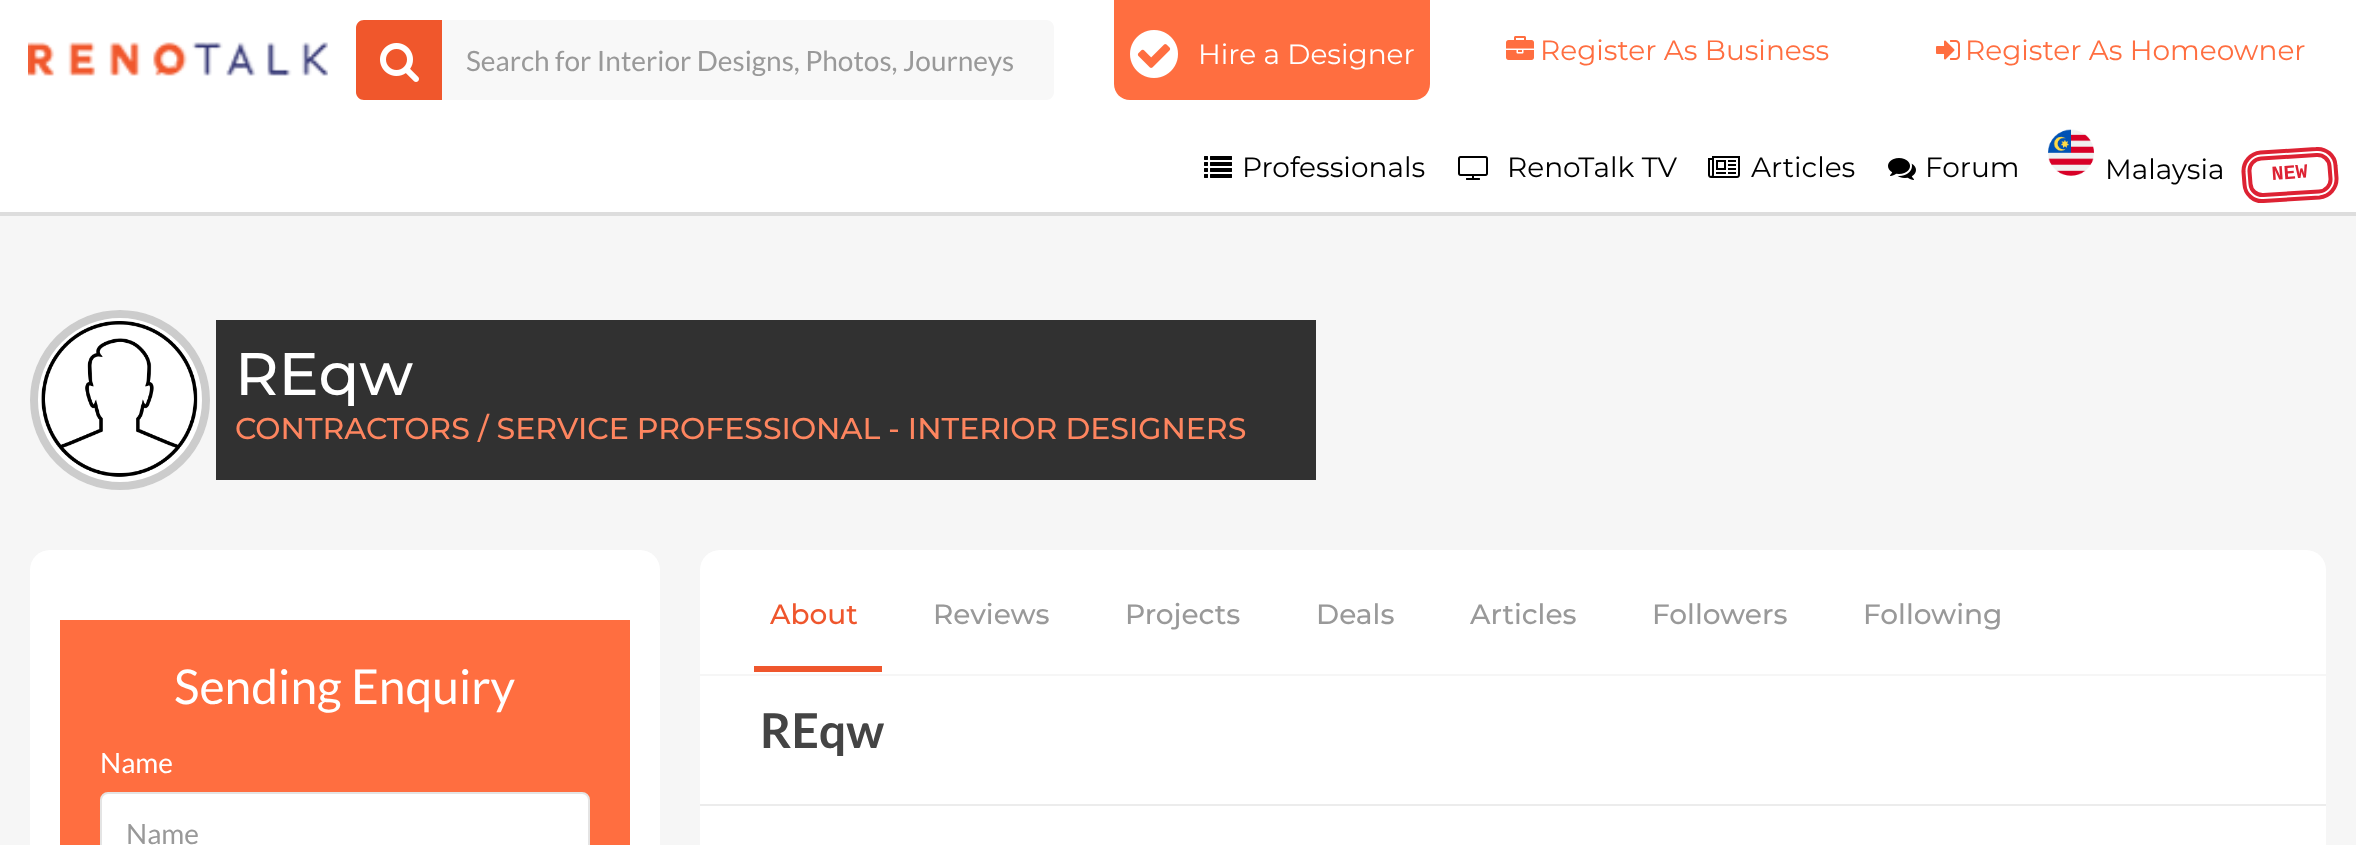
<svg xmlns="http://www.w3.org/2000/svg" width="2356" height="845">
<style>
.a{font:28px Lato;fill:#999}
.b{font:28px Montserrat;fill:#fff}
.c{font:28px Montserrat;fill:#ff6e40}
.d{font:28px Montserrat;fill:#000}
.e{font:bold 20px Liberation Mono;fill:#d23}
.f{font:500 60px Montserrat;fill:#fff}
.g{font:500 30px Montserrat;fill:#fe855f}
.h{font:48px Lato;fill:#fff}
.i{font:28px Lato;fill:#fff}
.j{font:500 28px Montserrat;fill:#ef562d}
.k{font:500 28px Montserrat;fill:#999}
.l{font:bold 48px Lato;fill:#444}
</style>
<defs>
<clipPath id="clip1"><path d="M236 340h1060v66H236z"/></clipPath>
</defs>
<rect width="100%" height="100%" fill="#f6f6f6"/>
<path fill="#0000001a" filter="blur(0.5px)" d="M-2 -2h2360v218H-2z"/>
<path fill="#fff" d="M0 0h2356v212H0z"/>
<image href="1.png" x="28" y="42" width="300" height="34"/>
<path fill="#f0572c" d="M364 20h78v80h-78c-4.5 0-8-3.5-8-8v-64c0-4.5 3.5-8 8-8z"/>
<image href="2.png" x="380" y="43" width="39" height="39"/>
<path fill="#f8f8f8" d="M442 20h604c4.5 0 8 3.5 8 8v64c0 4.5-3.5 8-8 8h-604z"/>
<path fill="#ff6e40" d="M1114 0h316v84c0 9-7 16-16 16h-284c-9 0-16-7-16-16z"/>
<image href="3.png" x="1130" y="30" width="48" height="48"/>
<image href="4.png" x="1506" y="36" width="28" height="24"/>
<image href="5.png" x="1936" y="40" width="24" height="20"/>
<image href="6.png" x="1204" y="156" width="28" height="22"/>
<image href="7.png" x="1458" y="156" width="30" height="24"/>
<image href="8.png" x="1708" y="156" width="32" height="22"/>
<image href="9.png" x="1888" y="158" width="28" height="22"/>
<image href="10.png" x="2048" y="129" width="46" height="47"/>
<path fill="none" stroke="#d23" stroke-width="4" d="M2260.5 152.5l55.5-3.5c10-1 19 6.5 19.5 16.5l1 12.5c.5 10-7 18.5-17 19.5l-56 3.5c-9.5 1-18.5-6.5-19-16.5l-1-12.5c-.5-10 7-18.5 17-19.5z"/>
<path fill="none" stroke="#d23" stroke-width="4" d="M2261 158.5l55.5-3.5c7-.5 12.5 4.5 13 11l1 12.5c.5 6.5-4.5 12.5-11.5 13l-55.5 3.5c-7 .5-12.5-4.5-13-11l-1-12.5c-.5-6.5 4.5-12.5 11.5-13z"/>
<circle fill="#fff" cx="120" cy="400" r="90"/>
<image href="11.png" x="41" y="321" width="157" height="156"/>
<circle fill="none" stroke="#ccc" stroke-width="8" cx="120" cy="400" r="86"/>
<path fill="#313131" d="M216 320h1100v160H216z"/>
<rect fill="#fff" x="30" y="550" width="630" height="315" rx="20"/>
<path fill="#ff6e40" d="M60 620h570v225H60z"/>
<rect fill="#fff" stroke="#e4e4e4" stroke-width="2" x="101" y="793" width="488" height="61" rx="7"/>
<rect fill="#fff" x="700" y="550" width="1626" height="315" rx="20"/>
<path fill="#ef562d" d="M754 666h128v6H754z"/>
<path fill="#f6f6f6" d="M700 674h1626v2H700z"/>
<path fill="#ececec" d="M700 804h1626v2H700z"/>
<text class="a" x="466" y="71">Search for Interior Designs, Photos, Journeys</text>
<text class="b" x="1198" y="64">Hire a Designer</text>
<text class="c" x="1540" y="60">Register As Business</text>
<text class="c" x="1965" y="60">Register As Homeowner</text>
<text class="d" x="1242" y="177">Professionals</text>
<text class="d" x="1507" y="177">RenoTalk TV</text>
<text class="d" x="1751" y="177">Articles</text>
<text class="d" x="1925" y="177">Forum</text>
<text class="d" x="2105" y="179">Malaysia</text>
<text class="e" x="2272" y="180" transform="rotate(-4 2272 180)">NEW</text>
<g clip-path="url(#clip1)">
<text class="f" x="235" y="395">REqw</text>
</g>
<text class="g" x="235" y="439">CONTRACTORS / SERVICE PROFESSIONAL - INTERIOR DESIGNERS</text>
<text class="h" x="174" y="704">Sending Enquiry</text>
<text class="i" x="100" y="773">Name</text>
<text class="a" x="126" y="844">Name</text>
<text class="j" x="770" y="624">About</text>
<text class="k" x="933" y="624">Reviews</text>
<text class="k" x="1125" y="624">Projects</text>
<text class="k" x="1316" y="624">Deals</text>
<text class="k" x="1470" y="624">Articles</text>
<text class="k" x="1652" y="624">Followers</text>
<text class="k" x="1863" y="624">Following</text>
<text class="l" x="760" y="748">REqw</text>
</svg>
